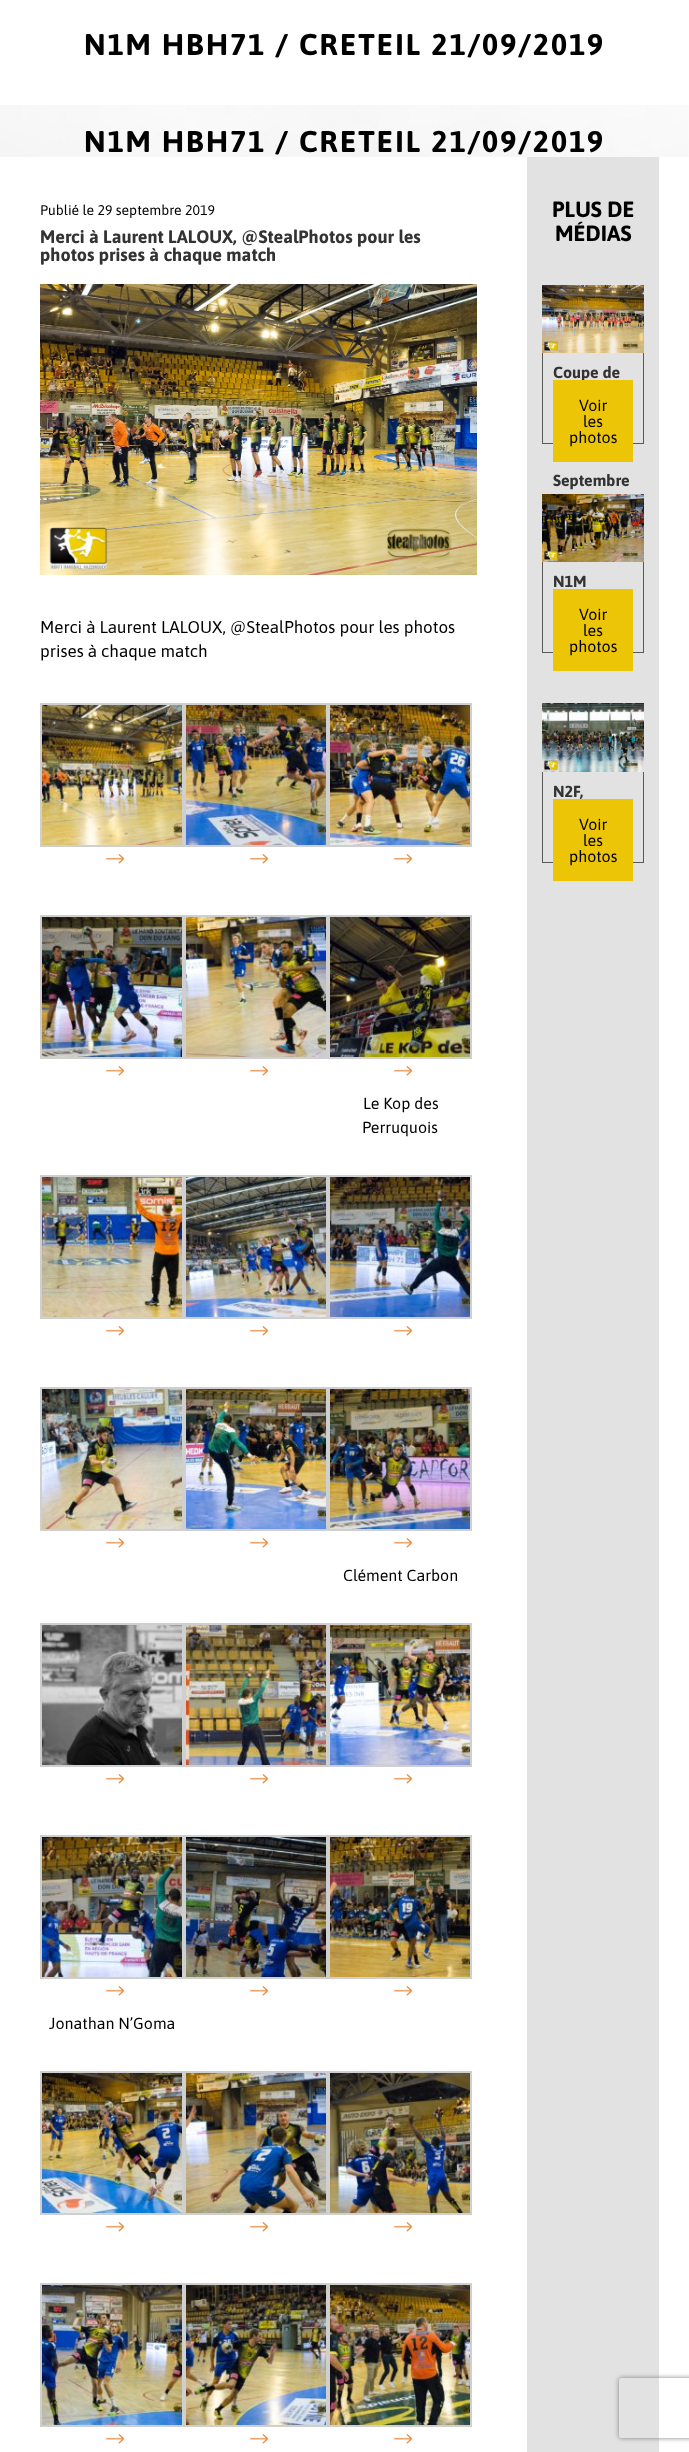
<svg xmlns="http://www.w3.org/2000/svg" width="689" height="2452">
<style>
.a{font:bold 30px Asap;letter-spacing:2px;fill:#000}
.b{font:14px Asap;fill:#000}
.c{font:bold 18px Asap;fill:#333}
.d{font:17px Asap;fill:#000}
.e{font:16px Asap;fill:#000}
.f{font:bold 22px Asap;fill:#000}
.g{font:bold 16px Asap;fill:#333}
</style>
<defs>
<clipPath id="clip1"><path d="M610 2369h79v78h-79zm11 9h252c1 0 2 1 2 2v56c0 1-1 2-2 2h-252c-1 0-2-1-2-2v-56c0-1 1-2 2-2z" clip-rule="evenodd"/></clipPath>
</defs>
<rect width="100%" height="100%" fill="#fff"/>
<image href="1.png" x="0" y="105" width="689" height="52"/>
<image href="2.png" x="40" y="284" width="437" height="291"/>
<path fill="none" stroke="#cfcfcf" stroke-width="2" d="M41 704h142v142H41z"/>
<image href="3.png" x="42" y="705" width="140" height="140"/>
<image href="4.png" x="106" y="854" width="18" height="10"/>
<path fill="none" stroke="#cfcfcf" stroke-width="2" d="M185 704h142v142H185z"/>
<image href="5.png" x="186" y="705" width="140" height="140"/>
<image href="4.png" x="250" y="854" width="18" height="10"/>
<path fill="none" stroke="#cfcfcf" stroke-width="2" d="M329 704h142v142H329z"/>
<image href="6.png" x="330" y="705" width="140" height="140"/>
<image href="4.png" x="394" y="854" width="18" height="10"/>
<path fill="none" stroke="#cfcfcf" stroke-width="2" d="M41 916h142v142H41z"/>
<image href="7.png" x="42" y="917" width="140" height="140"/>
<image href="4.png" x="106" y="1066" width="18" height="10"/>
<path fill="none" stroke="#cfcfcf" stroke-width="2" d="M185 916h142v142H185z"/>
<image href="8.png" x="186" y="917" width="140" height="140"/>
<image href="4.png" x="250" y="1066" width="18" height="10"/>
<path fill="none" stroke="#cfcfcf" stroke-width="2" d="M329 916h142v142H329z"/>
<image href="9.png" x="330" y="917" width="140" height="140"/>
<image href="4.png" x="394" y="1066" width="18" height="10"/>
<path fill="none" stroke="#cfcfcf" stroke-width="2" d="M41 1176h142v142H41z"/>
<image href="10.png" x="42" y="1177" width="140" height="140"/>
<image href="4.png" x="106" y="1326" width="18" height="10"/>
<path fill="none" stroke="#cfcfcf" stroke-width="2" d="M185 1176h142v142H185z"/>
<image href="11.png" x="186" y="1177" width="140" height="140"/>
<image href="4.png" x="250" y="1326" width="18" height="10"/>
<path fill="none" stroke="#cfcfcf" stroke-width="2" d="M329 1176h142v142H329z"/>
<image href="12.png" x="330" y="1177" width="140" height="140"/>
<image href="4.png" x="394" y="1326" width="18" height="10"/>
<path fill="none" stroke="#cfcfcf" stroke-width="2" d="M41 1388h142v142H41z"/>
<image href="13.png" x="42" y="1389" width="140" height="140"/>
<image href="4.png" x="106" y="1538" width="18" height="10"/>
<path fill="none" stroke="#cfcfcf" stroke-width="2" d="M185 1388h142v142H185z"/>
<image href="14.png" x="186" y="1389" width="140" height="140"/>
<image href="4.png" x="250" y="1538" width="18" height="10"/>
<path fill="none" stroke="#cfcfcf" stroke-width="2" d="M329 1388h142v142H329z"/>
<image href="15.png" x="330" y="1389" width="140" height="140"/>
<image href="4.png" x="394" y="1538" width="18" height="10"/>
<path fill="none" stroke="#cfcfcf" stroke-width="2" d="M41 1624h142v142H41z"/>
<image href="16.png" x="42" y="1625" width="140" height="140"/>
<image href="4.png" x="106" y="1774" width="18" height="10"/>
<path fill="none" stroke="#cfcfcf" stroke-width="2" d="M185 1624h142v142H185z"/>
<image href="17.png" x="186" y="1625" width="140" height="140"/>
<image href="4.png" x="250" y="1774" width="18" height="10"/>
<path fill="none" stroke="#cfcfcf" stroke-width="2" d="M329 1624h142v142H329z"/>
<image href="18.png" x="330" y="1625" width="140" height="140"/>
<image href="4.png" x="394" y="1774" width="18" height="10"/>
<path fill="none" stroke="#cfcfcf" stroke-width="2" d="M185 1836h142v142H185z"/>
<image href="19.png" x="186" y="1837" width="140" height="140"/>
<image href="4.png" x="250" y="1986" width="18" height="10"/>
<path fill="none" stroke="#cfcfcf" stroke-width="2" d="M329 1836h142v142H329z"/>
<image href="20.png" x="330" y="1837" width="140" height="140"/>
<image href="4.png" x="394" y="1986" width="18" height="10"/>
<path fill="none" stroke="#cfcfcf" stroke-width="2" d="M41 1836h142v142H41z"/>
<image href="21.png" x="42" y="1837" width="140" height="140"/>
<image href="4.png" x="106" y="1986" width="18" height="10"/>
<path fill="none" stroke="#cfcfcf" stroke-width="2" d="M41 2072h142v142H41z"/>
<image href="22.png" x="42" y="2073" width="140" height="140"/>
<image href="4.png" x="106" y="2222" width="18" height="10"/>
<path fill="none" stroke="#cfcfcf" stroke-width="2" d="M185 2072h142v142H185z"/>
<image href="23.png" x="186" y="2073" width="140" height="140"/>
<image href="4.png" x="250" y="2222" width="18" height="10"/>
<path fill="none" stroke="#cfcfcf" stroke-width="2" d="M329 2072h142v142H329z"/>
<image href="24.png" x="330" y="2073" width="140" height="140"/>
<image href="4.png" x="394" y="2222" width="18" height="10"/>
<path fill="none" stroke="#cfcfcf" stroke-width="2" d="M41 2284h142v142H41z"/>
<image href="25.png" x="42" y="2285" width="140" height="140"/>
<image href="4.png" x="106" y="2434" width="18" height="10"/>
<path fill="none" stroke="#cfcfcf" stroke-width="2" d="M185 2284h142v142H185z"/>
<image href="26.png" x="186" y="2285" width="140" height="140"/>
<image href="4.png" x="250" y="2434" width="18" height="10"/>
<path fill="none" stroke="#cfcfcf" stroke-width="2" d="M329 2284h142v142H329z"/>
<image href="27.png" x="330" y="2285" width="140" height="140"/>
<image href="4.png" x="394" y="2434" width="18" height="10"/>
<path fill="#e2e2e2" d="M527 157h132v2295H527z"/>
<image href="28.png" x="542" y="285" width="102" height="68"/>
<path fill="#595959" d="M643 353h1v91H643z"/>
<path fill="#595959" d="M542 443h102v1H542z"/>
<path fill="#595959" d="M542 353h1v91H542z"/>
<image href="29.png" x="542" y="494" width="102" height="68"/>
<path fill="#595959" d="M643 562h1v91H643z"/>
<path fill="#595959" d="M542 652h102v1H542z"/>
<path fill="#595959" d="M542 562h1v91H542z"/>
<path fill="#ebc506" d="M553 589h80v82H553z"/>
<image href="30.png" x="542" y="703" width="102" height="69"/>
<path fill="#595959" d="M643 772h1v91H643z"/>
<path fill="#595959" d="M542 862h102v1H542z"/>
<path fill="#595959" d="M542 772h1v91H542z"/>
<path fill="#ebc506" d="M553 799h80v82H553z"/>
<g clip-path="url(#clip1)">
<rect fill="#808080" filter="blur(2.5px)" x="619" y="2378" width="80" height="60" rx="2"/>
</g>
<text class="a" x="84" y="55">N1M HBH71 / CRETEIL 21/09/2019</text>
<text class="a" x="84" y="152">N1M HBH71 / CRETEIL 21/09/2019</text>
<text class="b" x="40" y="215">Publié le 29 septembre 2019</text>
<text class="c" x="40" y="243">Merci à Laurent LALOUX, @StealPhotos pour les</text>
<text class="c" x="40" y="261">photos prises à chaque match</text>
<text class="d" x="40" y="633">Merci à Laurent LALOUX, @StealPhotos pour les photos</text>
<text class="d" x="40" y="657">prises à chaque match</text>
<text class="e" x="363" y="1109">Le Kop des</text>
<text class="e" x="362" y="1133">Perruquois</text>
<text class="e" x="343" y="1581">Clément Carbon</text>
<text class="e" x="49" y="2029">Jonathan N’Goma</text>
<text class="f" x="552" y="217">PLUS DE</text>
<text class="f" x="555" y="241">MÉDIAS</text>
<text class="g" x="553" y="378">Coupe de</text>
<text class="g" x="553" y="486">Septembre</text>
<path fill="#ebc506" d="M553 380h80v82H553z"/>
<text class="e" x="579" y="411">Voir</text>
<text class="e" x="583" y="427">les</text>
<text class="e" x="569" y="443">photos</text>
<text class="g" x="553" y="587">N1M</text>
<text class="e" x="579" y="620">Voir</text>
<text class="e" x="583" y="636">les</text>
<text class="e" x="569" y="652">photos</text>
<text class="g" x="553" y="797">N2F,</text>
<text class="e" x="579" y="830">Voir</text>
<text class="e" x="583" y="846">les</text>
<text class="e" x="569" y="862">photos</text>
</svg>
